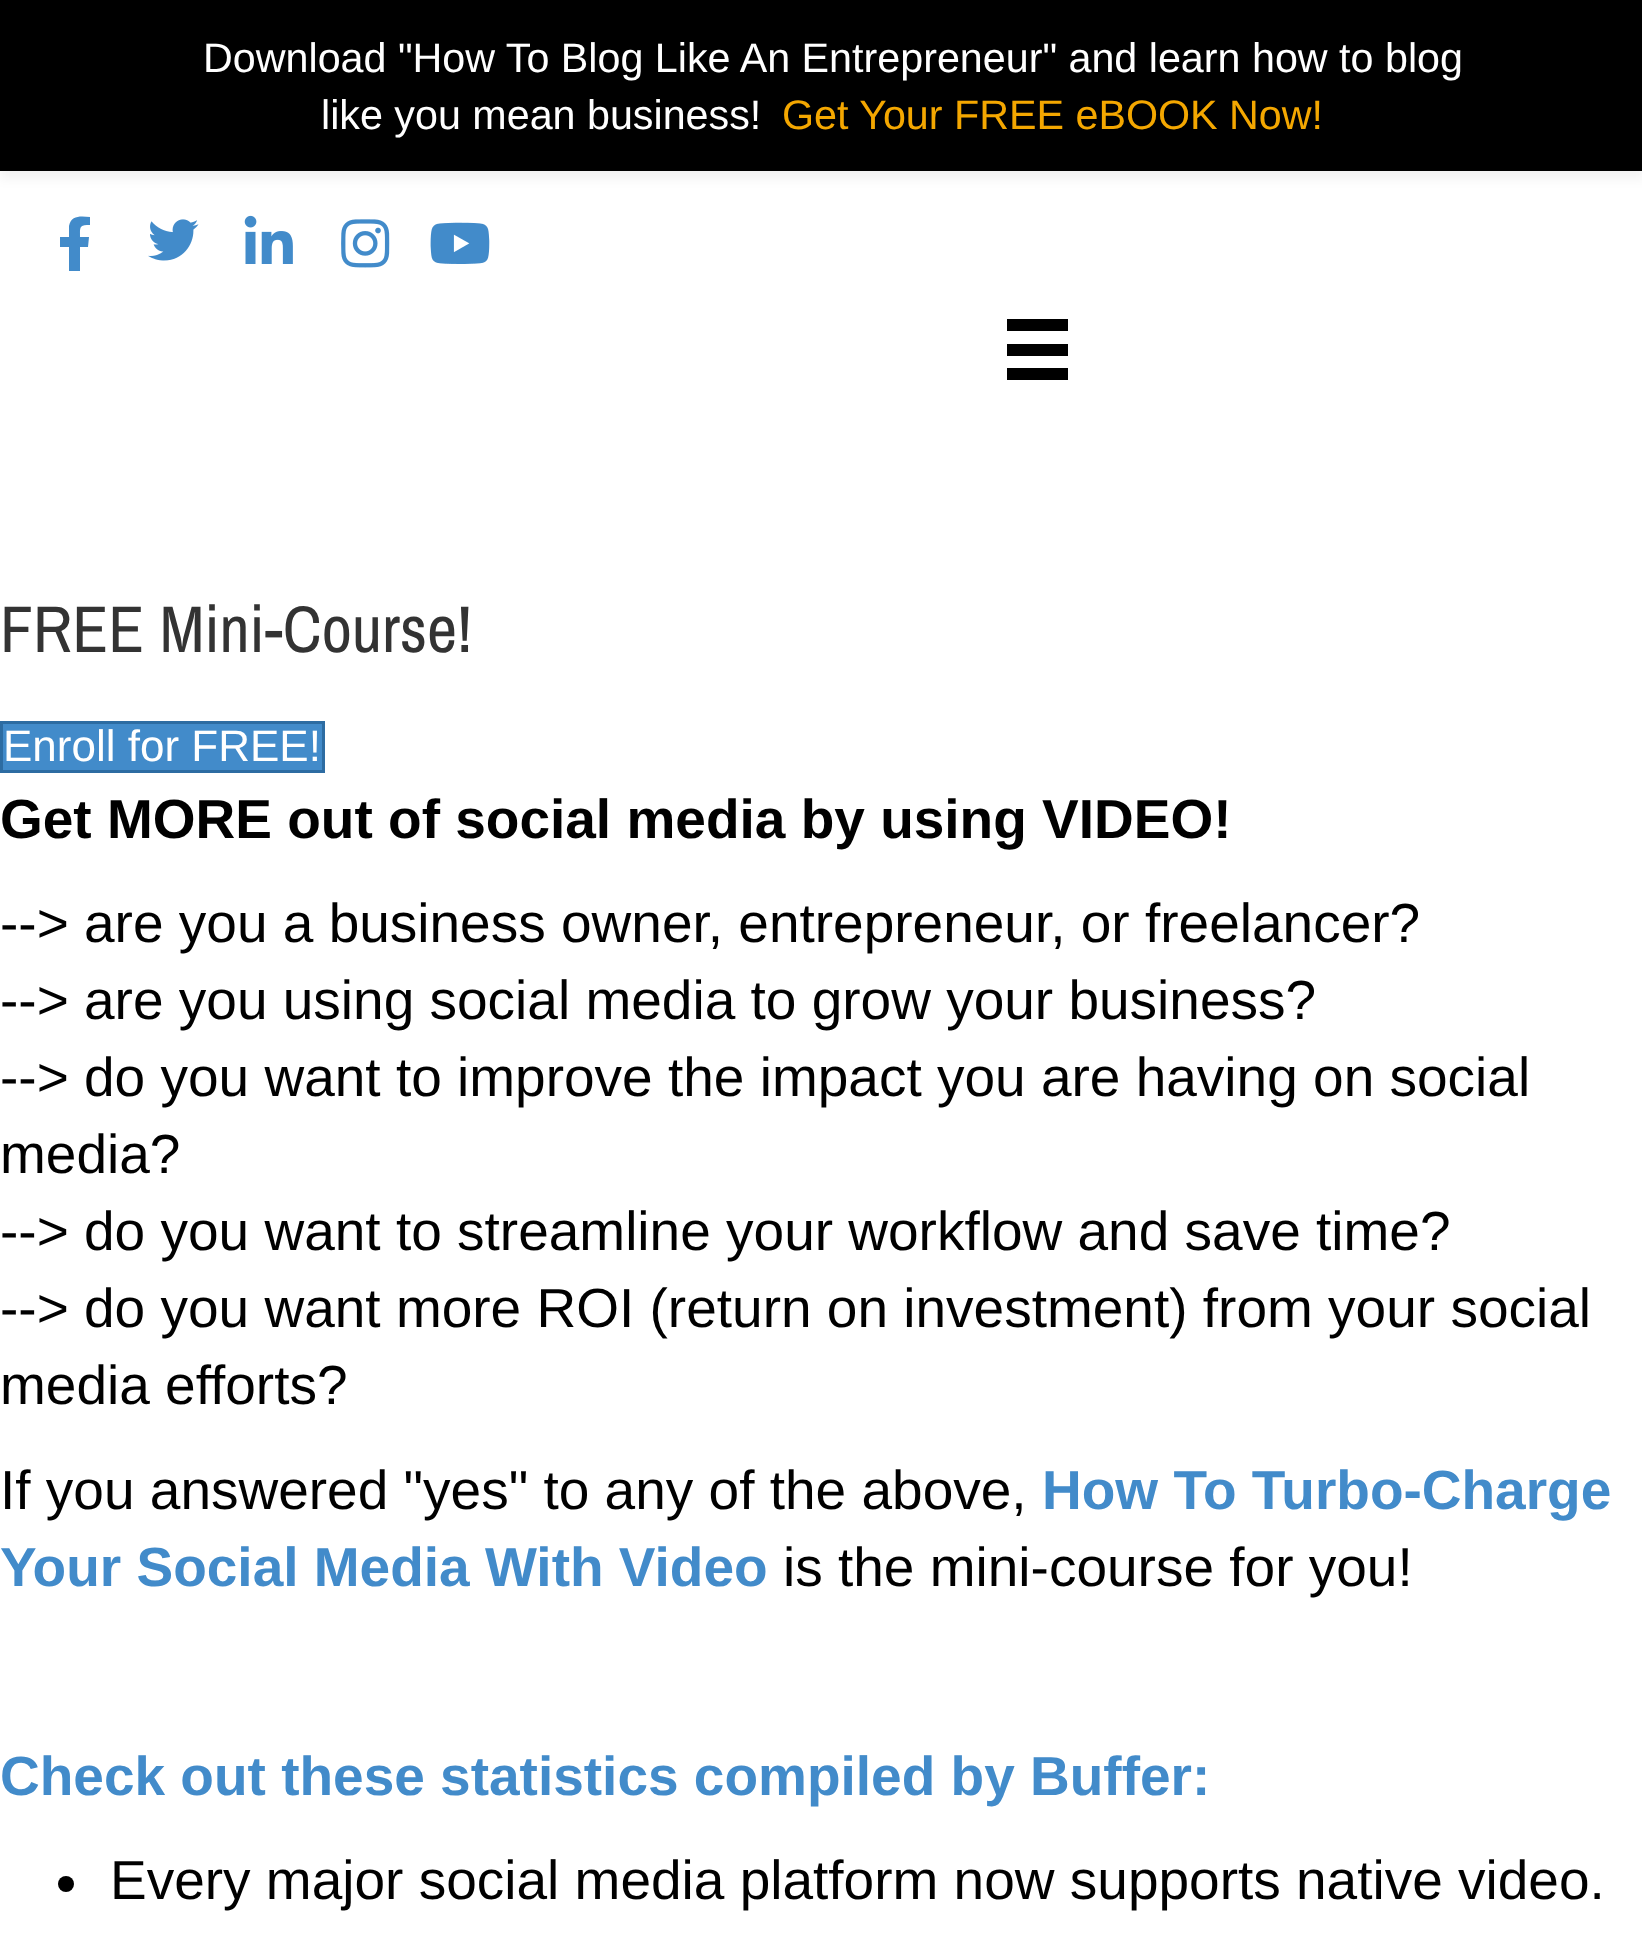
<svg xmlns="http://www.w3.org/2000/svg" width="1642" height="1941">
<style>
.a{font:41.25px Liberation Sans;fill:#fff}
.b{font:41.25px Liberation Sans;fill:#f4a700}
.c{font:66px Archivo Narrow;fill:#333}
.d{font:44px Liberation Sans;fill:#fff}
.e{font:bold 55px Liberation Sans;fill:#000}
.f{font:55px Liberation Sans;fill:#000}
.g{font:bold 55px Liberation Sans;fill:#428bca}
</style>
<rect width="100%" height="100%" fill="#fff"/>
<path fill="#0000000d" filter="blur(5.5px)" d="M0 8h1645v171H0z"/>
<path fill="#000" d="M0 0h1642v171H0z"/>
<path fill="#428bca" d="M88 247h-8v24h-11v-24h-9v-10h9v-11c2-11 12-10 21-9v8c-11 0-10 2-10 12h9z"/>
<image href="1.png" x="148" y="219" width="51" height="42"/>
<image href="2.png" x="244" y="215" width="49" height="49"/>
<image href="3.png" x="341" y="219" width="49" height="49"/>
<image href="4.png" x="430" y="222" width="60" height="42"/>
<path fill="#000" d="M1007 319h61v12H1007z"/>
<path fill="#000" d="M1007 344h61v12H1007z"/>
<path fill="#000" d="M1007 368h61v12H1007z"/>
<path fill="#428bca" stroke="#2d6ca2" stroke-width="3" d="M1.5 722.5h322v49H1.5z"/>
<circle fill="#000" cx="66" cy="1884" r="8"/>
<text class="a" x="203" y="72">Download "How To Blog Like An Entrepreneur" and learn how to blog</text>
<text class="a" x="321" y="129">like you mean business!</text>
<text class="b" x="782" y="129">Get Your FREE eBOOK Now!</text>
<text class="c" x="0" y="652">FREE Mini-Course!</text>
<text class="d" x="3" y="761">Enroll for FREE!</text>
<text class="e" x="0" y="838">Get MORE out of social media by using VIDEO!</text>
<text class="f" x="0" y="942">--&gt; are you a business owner, entrepreneur, or freelancer?</text>
<text class="f" x="0" y="1019">--&gt; are you using social media to grow your business?</text>
<text class="f" x="0" y="1096">--&gt; do you want to improve the impact you are having on social</text>
<text class="f" x="0" y="1173">media?</text>
<text class="f" x="0" y="1250">--&gt; do you want to streamline your workflow and save time?</text>
<text class="f" x="0" y="1327">--&gt; do you want more ROI (return on investment) from your social</text>
<text class="f" x="0" y="1404">media efforts?</text>
<text class="f" x="0" y="1509">If you answered "yes" to any of the above,</text>
<text class="g" x="1042" y="1509">How To Turbo-Charge</text>
<text class="g" x="0" y="1586">Your Social Media With Video</text>
<text class="f" x="783" y="1586">is the mini-course for you!</text>
<text class="g" x="0" y="1795">Check out these statistics compiled by Buffer:</text>
<text class="f" x="110" y="1899">Every major social media platform now supports native video.</text>
</svg>
